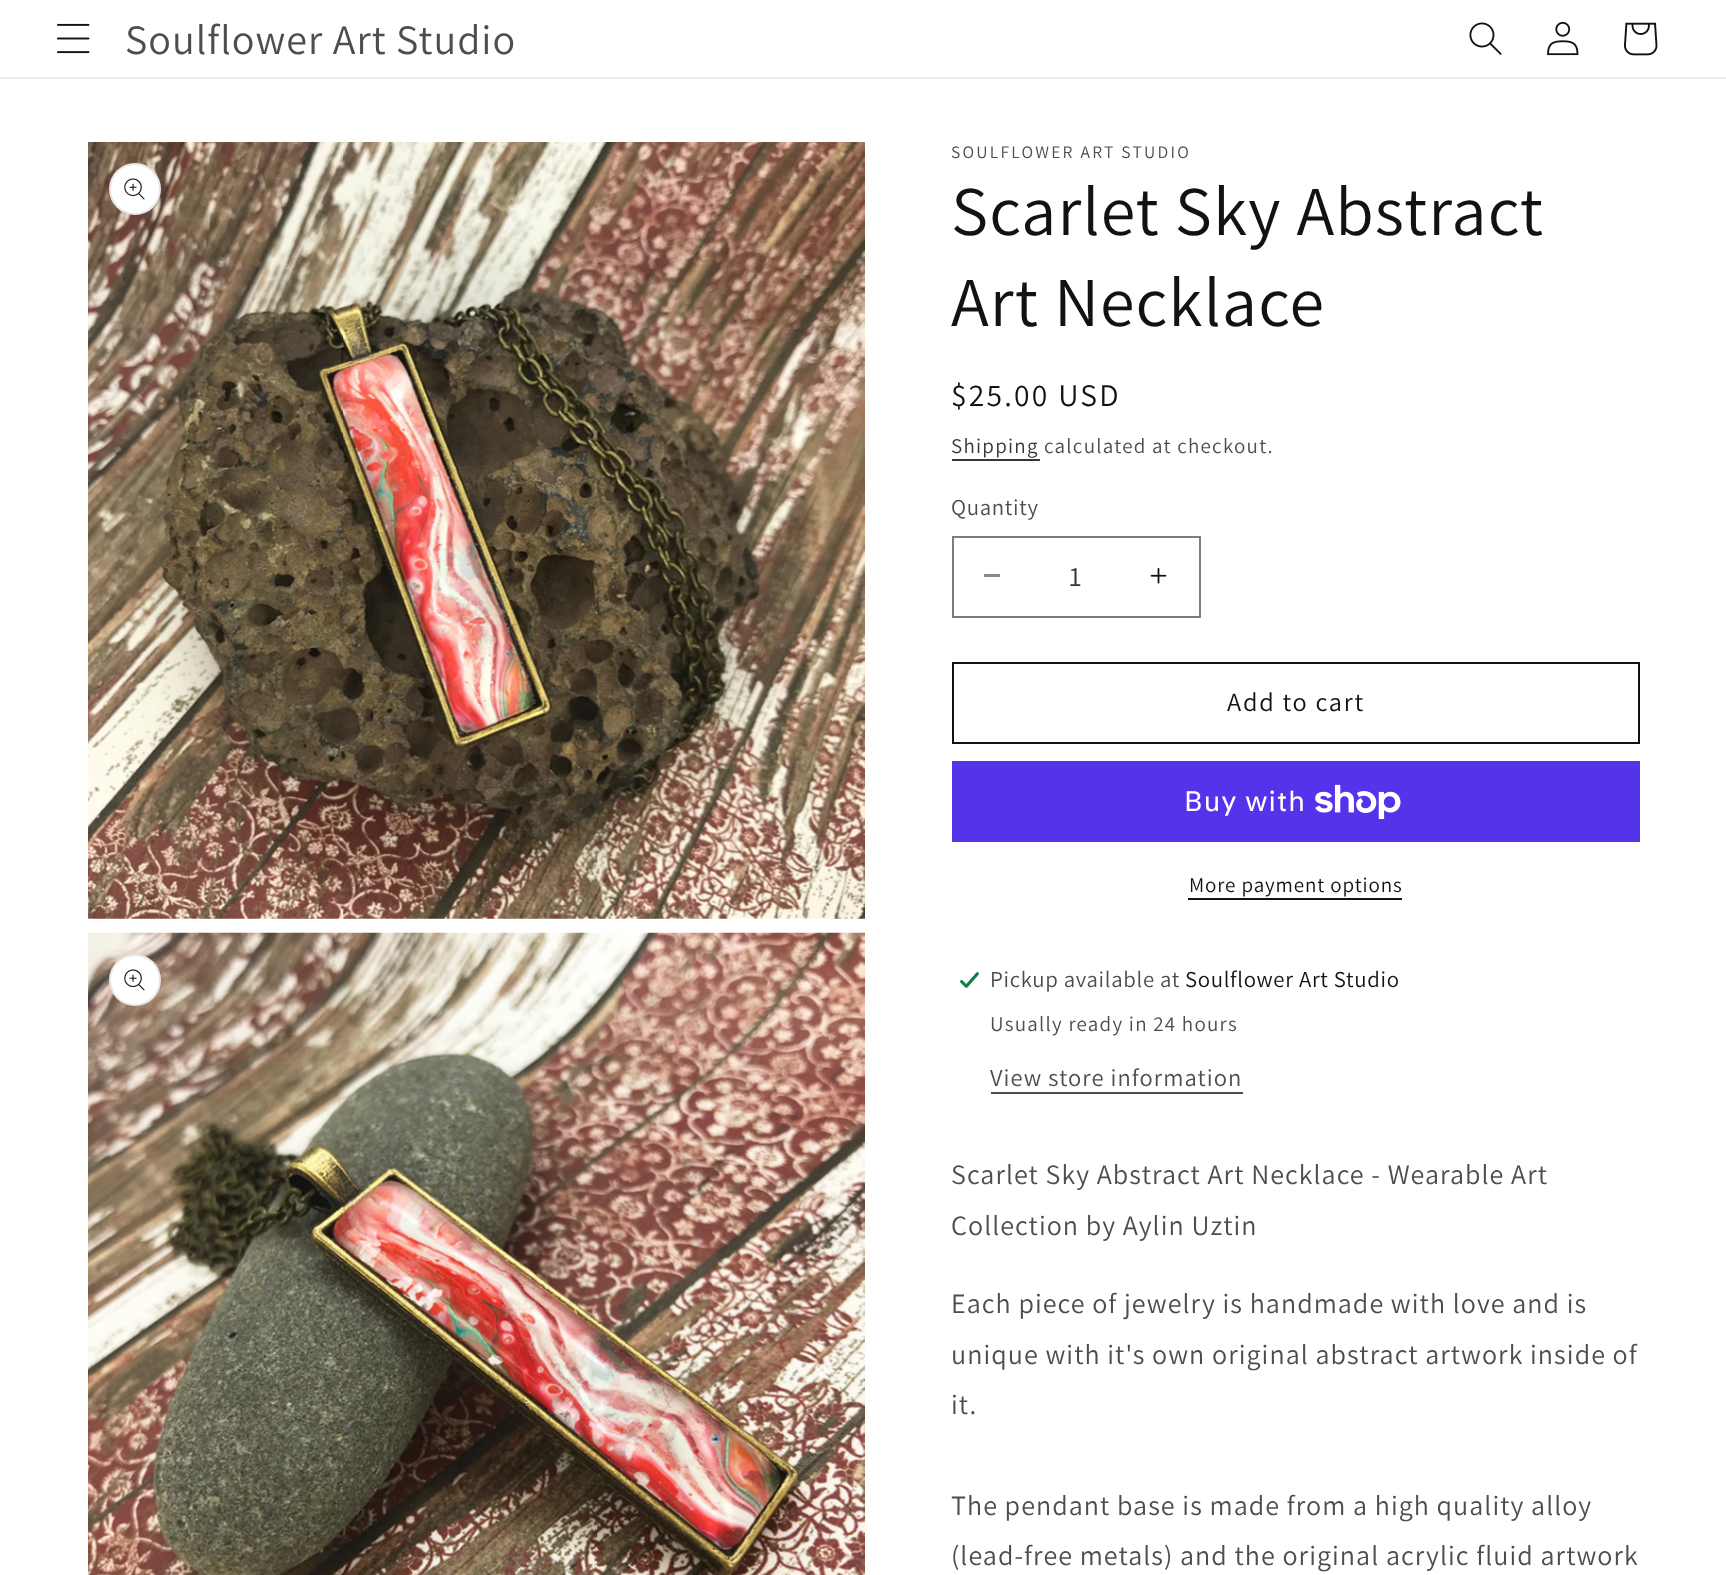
<svg xmlns="http://www.w3.org/2000/svg" width="1726" height="1575">
<style>
.a{font:42px Assistant;letter-spacing:1.05px;fill:#4d4d4d}
.b{font:17.5px Assistant;letter-spacing:2.25px;fill:#4d4d4d}
.c{font:70px Assistant;letter-spacing:1.05px;fill:#121212}
.d{font:31.5px Assistant;letter-spacing:2.25px;fill:#121212}
.e{font:21px Assistant;letter-spacing:1.25px;fill:#363636}
.f{font:21px Assistant;letter-spacing:1.25px;fill:#4d4d4d}
.g{font:22.75px Assistant;letter-spacing:0.7px;fill:#4d4d4d}
.h{font:28px Assistant;fill:#363636}
.i{font:26.25px Assistant;letter-spacing:1.75px;fill:#121212}
.j{font:28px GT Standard;letter-spacing:1.05px;fill:#fff}
.k{font:21px Assistant;letter-spacing:0.9px;fill:#121212}
.l{font:22.75px Assistant;letter-spacing:0.7px;fill:#121212}
.m{font:24.5px Assistant;letter-spacing:1.05px;fill:#4d4d4d}
.n{font:28px Assistant;letter-spacing:1.05px;fill:#4d4d4d}
</style>
<rect width="100%" height="100%" fill="#fff"/>
<path fill="#ececec" d="M0 77h1726v2H0z"/>
<image href="1.png" x="57" y="23" width="33" height="31"/>
<image href="2.png" x="1469" y="22" width="33" height="33"/>
<image href="3.png" x="1547" y="21" width="32" height="35"/>
<image href="4.png" x="1624" y="22" width="34" height="34"/>
<image href="5.png" x="88" y="142" width="777" height="777"/>
<circle fill="#fff" cx="135" cy="189" r="26"/>
<circle fill="none" stroke="#1212121a" stroke-width="2" cx="135" cy="189" r="25"/>
<image href="6.png" x="124" y="178" width="21" height="22"/>
<image href="7.png" x="88" y="932" width="777" height="643"/>
<circle fill="#fff" cx="135" cy="980" r="26"/>
<circle fill="none" stroke="#1212121a" stroke-width="2" cx="135" cy="980" r="25"/>
<image href="6.png" x="124" y="969" width="21" height="22"/>
<path fill="#363636" d="M952 459h88v2H952z"/>
<path fill="#898989" d="M984 574h16v3H984z"/>
<image href="8.png" x="1150" y="567" width="17" height="17"/>
<path fill="none" stroke="#7d7d7d" stroke-width="2" d="M953 537h247v80H953z"/>
<path fill="none" stroke="#121212" stroke-width="2" d="M953 663h686v80H953z"/>
<path fill="#5433eb" d="M952 761h688v81H952z"/>
<image href="9.png" x="1315" y="784" width="86" height="35"/>
<path fill="#121212" d="M1188 898h214v2H1188z"/>
<image href="10.png" x="960" y="972" width="19" height="16"/>
<path fill="#4d4d4d" d="M991 1092h252v2H991z"/>
<text class="a" x="125" y="54">Soulflower Art Studio</text>
<text class="b" x="951" y="158">SOULFLOWER ART STUDIO</text>
<text class="c" x="951" y="235">Scarlet Sky Abstract</text>
<text class="c" x="951" y="326">Art Necklace</text>
<text class="d" x="951" y="406">$25.00 USD</text>
<text class="e" x="951" y="453">Shipping</text>
<text class="f" x="1044" y="453">calculated at checkout.</text>
<text class="g" x="951" y="515">Quantity</text>
<text class="h" x="1069" y="586">1</text>
<text class="i" x="1227" y="711">Add to cart</text>
<text class="j" x="1184" y="811">Buy with</text>
<text class="k" x="1189" y="892">More payment options</text>
<text class="g" x="990" y="987">Pickup available at</text>
<text class="l" x="1185" y="987">Soulflower Art Studio</text>
<text class="f" x="990" y="1031">Usually ready in 24 hours</text>
<text class="m" x="990" y="1086">View store information</text>
<text class="n" x="951" y="1184">Scarlet Sky Abstract Art Necklace - Wearable Art</text>
<text class="n" x="951" y="1235">Collection by Aylin Uztin</text>
<text class="n" x="951" y="1313">Each piece of jewelry is handmade with love and is</text>
<text class="n" x="951" y="1364">unique with it's own original abstract artwork inside of</text>
<text class="n" x="951" y="1414">it.</text>
<text class="n" x="951" y="1515">The pendant base is made from a high quality alloy</text>
<text class="n" x="951" y="1565">(lead-free metals) and the original acrylic fluid artwork</text>
</svg>
